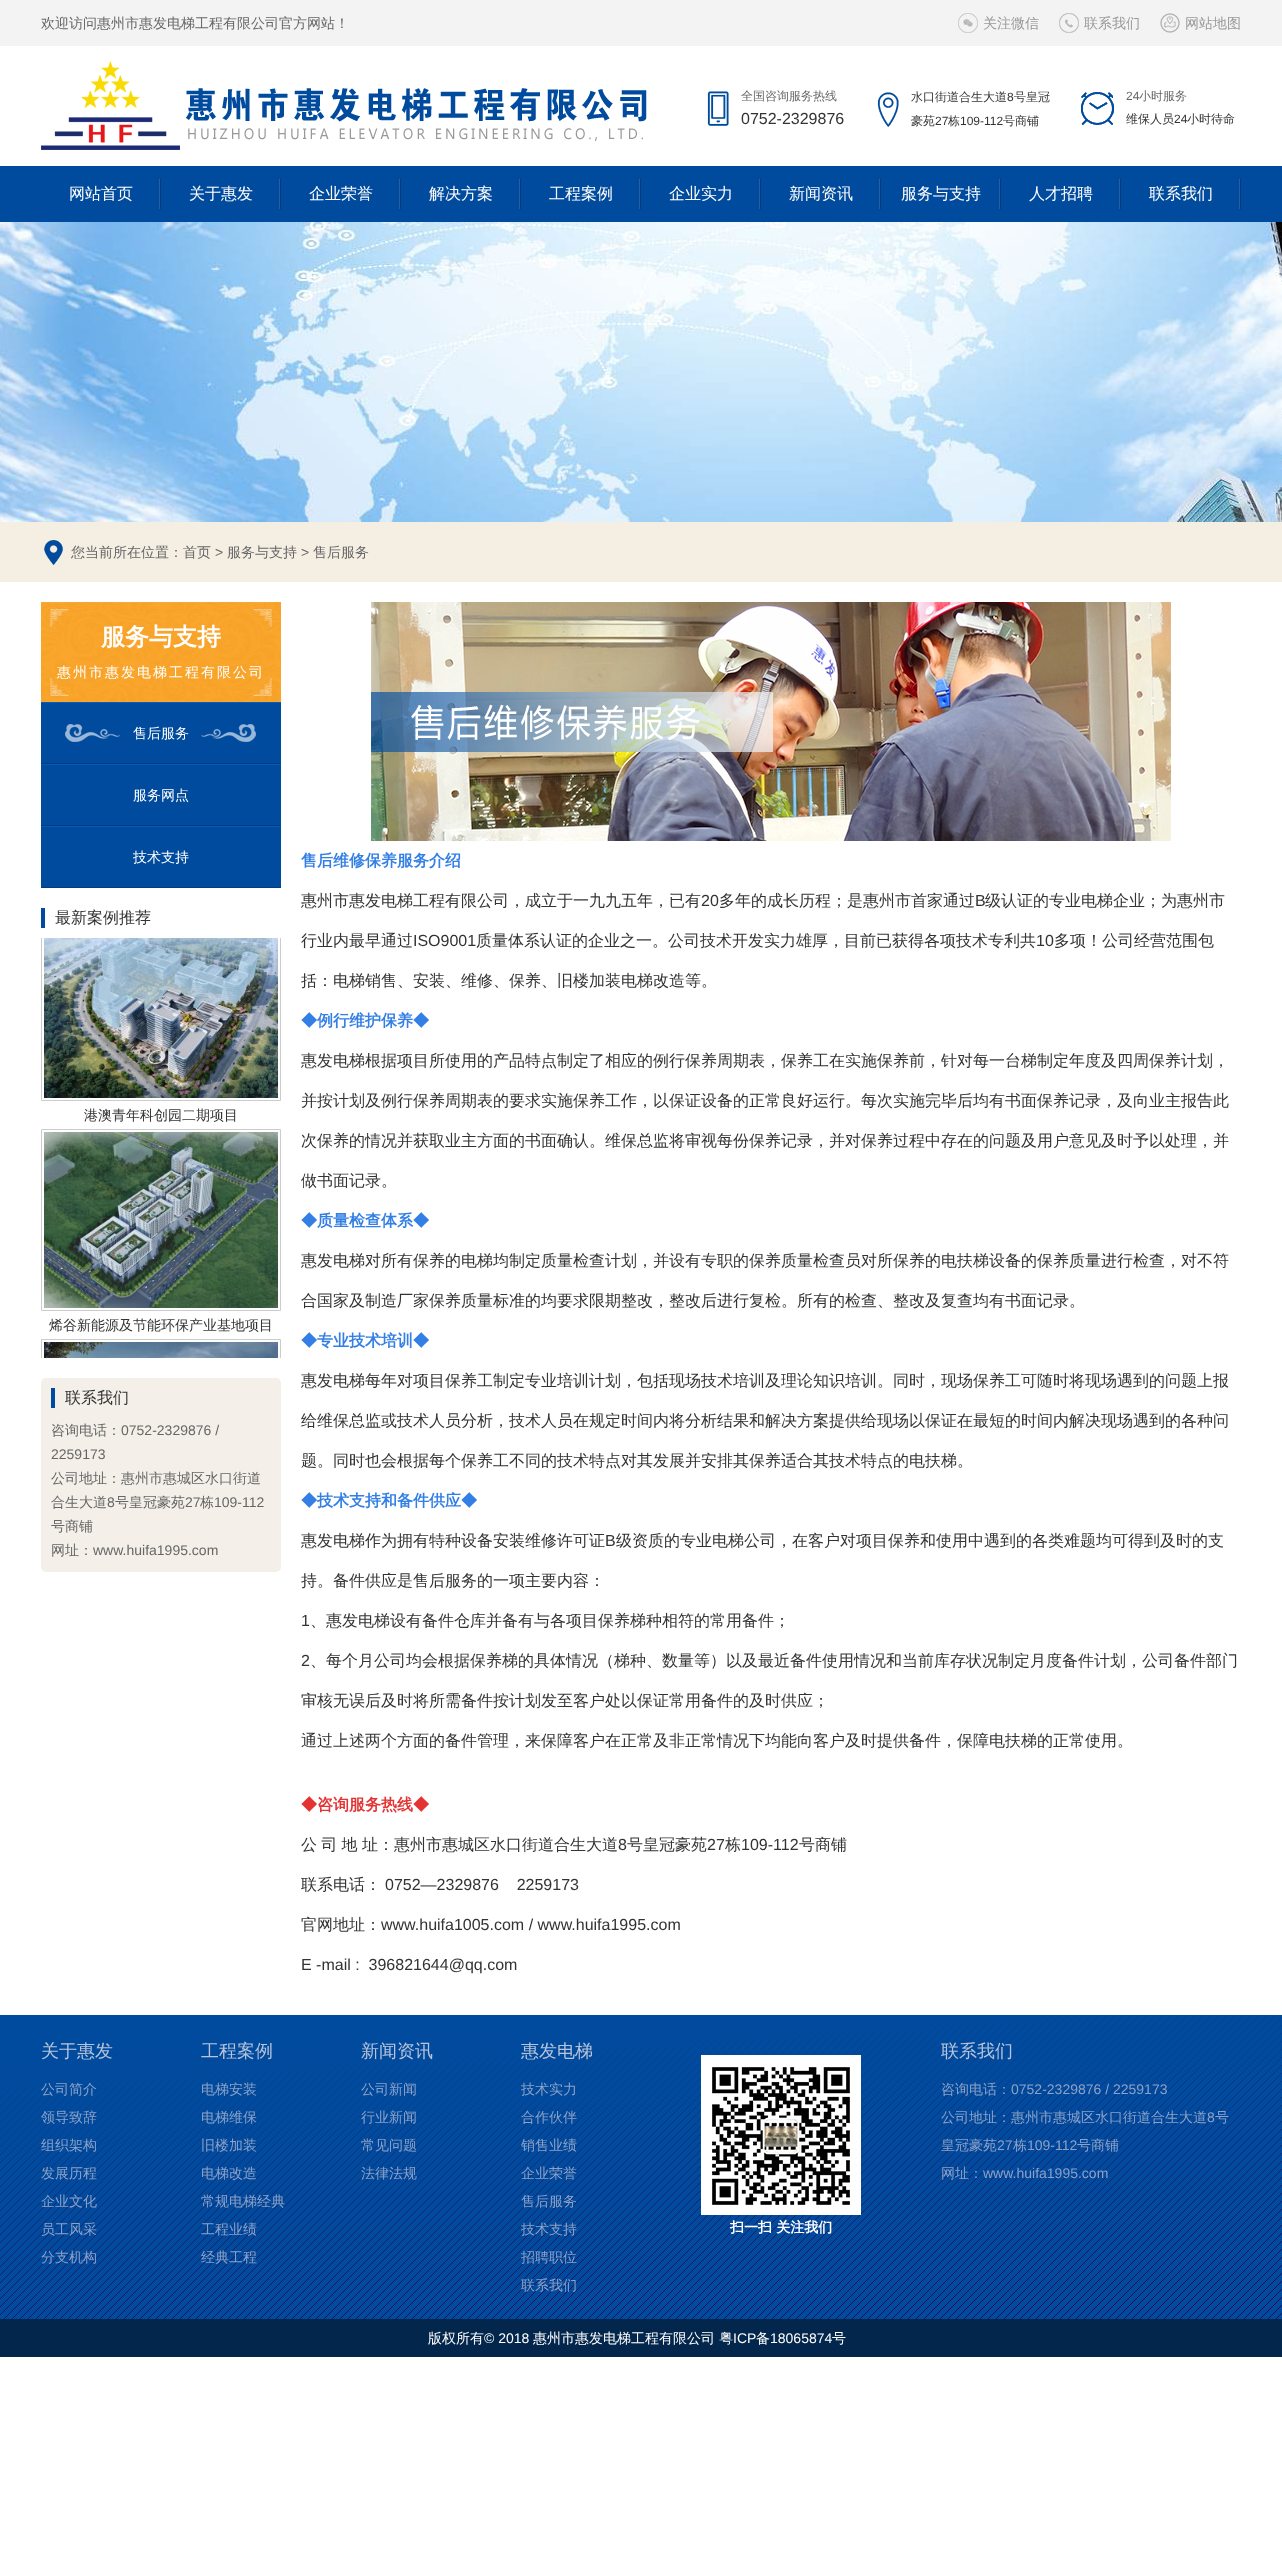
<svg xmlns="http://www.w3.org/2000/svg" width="1282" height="2550">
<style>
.a{font:500 14px WenQuanYi Zen Hei;fill:#666}
.b{font:500 14px WenQuanYi Zen Hei;fill:#999}
.c{font:500 12px WenQuanYi Zen Hei;fill:#666}
.d{font:16px Liberation Sans;fill:#333}
.e{font:500 12px WenQuanYi Zen Hei;fill:#333}
.f{font:12px Liberation Sans;fill:#333}
.g{font:12px Liberation Sans;fill:#666}
.h{font:500 16px WenQuanYi Zen Hei;fill:#fff}
.i{font:14px Liberation Sans;fill:#666}
.j{font:bold 24px WenQuanYi Zen Hei;fill:#fff}
.k{font:500 14px WenQuanYi Zen Hei;letter-spacing:2px;fill:#fff}
.l{font:500 14px WenQuanYi Zen Hei;fill:#fff}
.m{font:500 16px WenQuanYi Zen Hei;fill:#333}
.n{font:500 14px WenQuanYi Zen Hei;fill:#333}
.o{font:bold 16px WenQuanYi Zen Hei;fill:#337fe5}
.p{font:bold 16px WenQuanYi Zen Hei;fill:#e53333}
.q{font:500 18px WenQuanYi Zen Hei;fill:#b8c4db}
.r{font:500 14px WenQuanYi Zen Hei;fill:#8da2c8}
.s{font:14px Liberation Sans;fill:#8da2c8}
.t{font:bold 14px WenQuanYi Zen Hei;fill:#fff}
.u{font:14px Liberation Sans;fill:#fff}
</style>
<defs>
<clipPath id="clip1"><path d="M41 938h240v420H41z"/></clipPath>
</defs>
<rect width="100%" height="100%" fill="#fff"/>
<path fill="#f3f3f3" d="M0 0h1282v46H0z"/>
<image href="1.png" x="958" y="13" width="20" height="20"/>
<image href="2.png" x="1059" y="13" width="20" height="20"/>
<image href="3.png" x="1160" y="13" width="20" height="20"/>
<image href="4.png" x="41" y="61" width="606" height="89"/>
<image href="5.png" x="707" y="91" width="22" height="35"/>
<image href="6.png" x="877" y="92" width="22" height="35"/>
<image href="7.png" x="1081" y="92" width="33" height="33"/>
<image href="8.png" x="1081" y="92" width="33" height="33"/>
<path fill="#004b9d" d="M0 166h1282v56H0z"/>
<image href="9.png" x="159" y="179" width="2" height="30"/>
<image href="9.png" x="279" y="179" width="2" height="30"/>
<image href="9.png" x="399" y="179" width="2" height="30"/>
<image href="9.png" x="519" y="179" width="2" height="30"/>
<image href="9.png" x="639" y="179" width="2" height="30"/>
<image href="9.png" x="759" y="179" width="2" height="30"/>
<image href="9.png" x="879" y="179" width="2" height="30"/>
<image href="9.png" x="999" y="179" width="2" height="30"/>
<image href="9.png" x="1119" y="179" width="2" height="30"/>
<image href="9.png" x="1239" y="179" width="2" height="30"/>
<image href="10.png" x="0" y="222" width="1282" height="300"/>
<path fill="#f4eee3" d="M0 522h1282v60H0z"/>
<image href="11.png" x="44" y="540" width="19" height="25"/>
<image href="12.png" x="41" y="602" width="240" height="100"/>
<path fill="#004b9d" d="M41 703h240v184H41z"/>
<path fill="#065bb7" d="M41 702h240v1H41z"/>
<path fill="#013d7d" d="M41 763h240v1H41z"/>
<image href="13.png" x="65" y="724" width="191" height="18"/>
<path fill="#065bb7" d="M41 764h240v1H41z"/>
<path fill="#013d7d" d="M41 825h240v1H41z"/>
<path fill="#065bb7" d="M41 826h240v1H41z"/>
<path fill="#013d7d" d="M41 887h240v1H41z"/>
<path fill="#004b9d" d="M41 908h4v20H41z"/>
<path fill="none" stroke="#ccc" d="M41.5 1129.5h239v181H41.5z"/>
<image href="15.png" x="44" y="1132" width="234" height="176"/>
<rect fill="#f4f0e9" x="41" y="1378" width="240" height="194" rx="5"/>
<path fill="#004b9d" d="M51 1388h4v20H51z"/>
<image href="17.png" x="371" y="602" width="800" height="239"/>
<path fill="#004b9d" d="M0 2015h1282v304H0z"/>
<image href="18.png" x="0" y="2015" width="1282" height="304"/>
<image href="19.png" x="701" y="2055" width="160" height="160"/>
<path fill="#03264c" d="M0 2319h1282v38H0z"/>
<text class="a" x="41" y="28">欢迎访问惠州市惠发电梯工程有限公司官方网站！</text>
<text class="b" x="983" y="28">关注微信</text>
<text class="b" x="1084" y="28">联系我们</text>
<text class="b" x="1185" y="28">网站地图</text>
<text class="c" x="741" y="100">全国咨询服务热线</text>
<text class="d" x="741" y="124">0752-2329876</text>
<text class="e" x="911" y="101">水口街道合生大道</text>
<text class="f" x="1007" y="101">8</text>
<text class="e" x="1014" y="101">号皇冠</text>
<text class="e" x="911" y="125">豪苑</text>
<text class="f" x="935" y="125">27</text>
<text class="e" x="948" y="125">栋</text>
<text class="f" x="960" y="125">109-112</text>
<text class="e" x="1003" y="125">号商铺</text>
<text class="g" x="1126" y="100">24</text>
<text class="c" x="1139" y="100">小时服务</text>
<text class="e" x="1126" y="123">维保人员</text>
<text class="f" x="1174" y="123">24</text>
<text class="e" x="1187" y="123">小时待命</text>
<text class="h" x="69" y="199">网站首页</text>
<text class="h" x="189" y="199">关于惠发</text>
<text class="h" x="309" y="199">企业荣誉</text>
<text class="h" x="429" y="199">解决方案</text>
<text class="h" x="549" y="199">工程案例</text>
<text class="h" x="669" y="199">企业实力</text>
<text class="h" x="789" y="199">新闻资讯</text>
<text class="h" x="901" y="199">服务与支持</text>
<text class="h" x="1029" y="199">人才招聘</text>
<text class="h" x="1149" y="199">联系我们</text>
<text class="a" x="71" y="557">您当前所在位置：首页</text>
<text class="i" x="215" y="557">&gt;</text>
<text class="a" x="227" y="557">服务与支持</text>
<text class="i" x="301" y="557">&gt;</text>
<text class="a" x="313" y="557">售后服务</text>
<text class="j" x="101" y="645">服务与支持</text>
<text class="k" x="57" y="677">惠州市惠发电梯工程有限公司</text>
<text class="l" x="133" y="738">售后服务</text>
<text class="l" x="133" y="800">服务网点</text>
<text class="l" x="133" y="862">技术支持</text>
<text class="m" x="55" y="923">最新案例推荐</text>
<g clip-path="url(#clip1)">
<path fill="none" stroke="#ccc" d="M41.5 919.5h239v181H41.5z"/>
</g>
<image href="14.png" x="44" y="938" width="234" height="160"/>
<text class="n" x="84" y="1120">港澳青年科创园二期项目</text>
<text class="n" x="49" y="1330">烯谷新能源及节能环保产业基地项目</text>
<text class="m" x="65" y="1403">联系我们</text>
<text class="a" x="51" y="1435">咨询电话：</text>
<text class="i" x="121" y="1435">0752-2329876 /</text>
<text class="i" x="51" y="1459">2259173</text>
<text class="a" x="51" y="1483">公司地址：惠州市惠城区水口街道</text>
<text class="a" x="51" y="1507">合生大道</text>
<text class="i" x="107" y="1507">8</text>
<text class="a" x="115" y="1507">号皇冠豪苑</text>
<text class="i" x="185" y="1507">27</text>
<text class="a" x="200" y="1507">栋</text>
<text class="i" x="214" y="1507">109-112</text>
<text class="a" x="51" y="1531">号商铺</text>
<g clip-path="url(#clip1)">
<path fill="none" stroke="#ccc" d="M41.5 1339.5h239v181H41.5z"/>
</g>
<image href="16.png" x="44" y="1342" width="234" height="16"/>
<text class="a" x="51" y="1555">网址：</text>
<text class="i" x="93" y="1555">www.huifa1995.com</text>
<text class="o" x="301" y="866">售后维修保养服务介绍</text>
<text class="m" x="301" y="906">惠州市惠发电梯工程有限公司，成立于一九九五年，已有</text>
<text class="d" x="701" y="906">20</text>
<text class="m" x="719" y="906">多年的成长历程；是惠州市首家通过</text>
<text class="d" x="975" y="906">B</text>
<text class="m" x="985" y="906">级认证的专业电梯企业；为惠州市</text>
<text class="m" x="301" y="946">行业内最早通过</text>
<text class="d" x="413" y="946">ISO9001</text>
<text class="m" x="476" y="946">质量体系认证的企业之一。公司技术开发实力雄厚，目前已获得各项技术专利共</text>
<text class="d" x="1036" y="946">10</text>
<text class="m" x="1054" y="946">多项！公司经营范围包</text>
<text class="m" x="301" y="986">括：电梯销售、安装、维修、保养、旧楼加装电梯改造等。</text>
<text class="o" x="301" y="1026">◆例行维护保养◆</text>
<text class="m" x="301" y="1066">惠发电梯根据项目所使用的产品特点制定了相应的例行保养周期表，保养工在实施保养前，针对每一台梯制定年度及四周保养计划，</text>
<text class="m" x="301" y="1106">并按计划及例行保养周期表的要求实施保养工作，以保证设备的正常良好运行。每次实施完毕后均有书面保养记录，及向业主报告此</text>
<text class="m" x="301" y="1146">次保养的情况并获取业主方面的书面确认。维保总监将审视每份保养记录，并对保养过程中存在的问题及用户意见及时予以处理，并</text>
<text class="m" x="301" y="1186">做书面记录。</text>
<text class="o" x="301" y="1226">◆质量检查体系◆</text>
<text class="m" x="301" y="1266">惠发电梯对所有保养的电梯均制定质量检查计划，并设有专职的保养质量检查员对所保养的电扶梯设备的保养质量进行检查，对不符</text>
<text class="m" x="301" y="1306">合国家及制造厂家保养质量标准的均要求限期整改，整改后进行复检。所有的检查、整改及复查均有书面记录。</text>
<text class="o" x="301" y="1346">◆专业技术培训◆</text>
<text class="m" x="301" y="1386">惠发电梯每年对项目保养工制定专业培训计划，包括现场技术培训及理论知识培训。同时，现场保养工可随时将现场遇到的问题上报</text>
<text class="m" x="301" y="1426">给维保总监或技术人员分析，技术人员在规定时间内将分析结果和解决方案提供给现场以保证在最短的时间内解决现场遇到的各种问</text>
<text class="m" x="301" y="1466">题。同时也会根据每个保养工不同的技术特点对其发展并安排其保养适合其技术特点的电扶梯。</text>
<text class="o" x="301" y="1506">◆技术支持和备件供应◆</text>
<text class="m" x="301" y="1546">惠发电梯作为拥有特种设备安装维修许可证</text>
<text class="d" x="605" y="1546">B</text>
<text class="m" x="616" y="1546">级资质的专业电梯公司，在客户对项目保养和使用中遇到的各类难题均可得到及时的支</text>
<text class="m" x="301" y="1586">持。备件供应是售后服务的一项主要内容：</text>
<text class="d" x="301" y="1626">1</text>
<text class="m" x="310" y="1626">、惠发电梯设有备件仓库并备有与各项目保养梯种相符的常用备件；</text>
<text class="d" x="301" y="1666">2</text>
<text class="m" x="310" y="1666">、每个月公司均会根据保养梯的具体情况（梯种、数量等）以及最近备件使用情况和当前库存状况制定月度备件计划，公司备件部门</text>
<text class="m" x="301" y="1706">审核无误后及时将所需备件按计划发至客户处以保证常用备件的及时供应；</text>
<text class="m" x="301" y="1746">通过上述两个方面的备件管理，来保障客户在正常及非正常情况下均能向客户及时提供备件，保障电扶梯的正常使用。</text>
<text class="p" x="301" y="1810">◆咨询服务热线◆</text>
<text class="m" x="301" y="1850" word-spacing="-0.5">公 司 地 址：惠州市惠城区水口街道合生大道</text>
<text class="d" x="618" y="1850">8</text>
<text class="m" x="627" y="1850">号皇冠豪苑</text>
<text class="d" x="707" y="1850">27</text>
<text class="m" x="725" y="1850">栋</text>
<text class="d" x="741" y="1850">109-112</text>
<text class="m" x="799" y="1850">号商铺</text>
<text class="m" x="301" y="1890">联系电话：</text>
<text class="d" xml:space="preserve" x="385" y="1890">0752—2329876    2259173</text>
<text class="m" x="301" y="1930">官网地址：</text>
<text class="d" x="381" y="1930">www.huifa1005.com / www.huifa1995.com</text>
<text class="d" xml:space="preserve" x="301" y="1970">E -mail :  396821644@qq.com</text>
<text class="q" x="41" y="2057">关于惠发</text>
<text class="r" x="41" y="2094">公司简介</text>
<text class="r" x="41" y="2122">领导致辞</text>
<text class="r" x="41" y="2150">组织架构</text>
<text class="r" x="41" y="2178">发展历程</text>
<text class="r" x="41" y="2206">企业文化</text>
<text class="r" x="41" y="2234">员工风采</text>
<text class="r" x="41" y="2262">分支机构</text>
<text class="q" x="201" y="2057">工程案例</text>
<text class="r" x="201" y="2094">电梯安装</text>
<text class="r" x="201" y="2122">电梯维保</text>
<text class="r" x="201" y="2150">旧楼加装</text>
<text class="r" x="201" y="2178">电梯改造</text>
<text class="r" x="201" y="2206">常规电梯经典</text>
<text class="r" x="201" y="2234">工程业绩</text>
<text class="r" x="201" y="2262">经典工程</text>
<text class="q" x="361" y="2057">新闻资讯</text>
<text class="r" x="361" y="2094">公司新闻</text>
<text class="r" x="361" y="2122">行业新闻</text>
<text class="r" x="361" y="2150">常见问题</text>
<text class="r" x="361" y="2178">法律法规</text>
<text class="q" x="521" y="2057">惠发电梯</text>
<text class="r" x="521" y="2094">技术实力</text>
<text class="r" x="521" y="2122">合作伙伴</text>
<text class="r" x="521" y="2150">销售业绩</text>
<text class="r" x="521" y="2178">企业荣誉</text>
<text class="r" x="521" y="2206">售后服务</text>
<text class="r" x="521" y="2234">技术支持</text>
<text class="r" x="521" y="2262">招聘职位</text>
<text class="r" x="521" y="2290">联系我们</text>
<text class="q" x="941" y="2057">联系我们</text>
<text class="r" x="941" y="2094">咨询电话：</text>
<text class="s" x="1011" y="2094">0752-2329876 / 2259173</text>
<text class="r" x="941" y="2122">公司地址：惠州市惠城区水口街道合生大道</text>
<text class="s" x="1207" y="2122">8</text>
<text class="r" x="1215" y="2122">号</text>
<text class="r" x="941" y="2150">皇冠豪苑</text>
<text class="s" x="997" y="2150">27</text>
<text class="r" x="1013" y="2150">栋</text>
<text class="s" x="1027" y="2150">109-112</text>
<text class="r" x="1077" y="2150">号商铺</text>
<text class="r" x="941" y="2178">网址：</text>
<text class="s" x="983" y="2178">www.huifa1995.com</text>
<text class="t" x="730" y="2232">扫一扫 关注我们</text>
<text class="l" x="428" y="2343">版权所有</text>
<text class="u" x="484" y="2343">© 2018</text>
<text class="l" x="533" y="2343">惠州市惠发电梯工程有限公司 粤</text>
<text class="u" x="733" y="2343">ICP</text>
<text class="l" x="756" y="2343">备</text>
<text class="u" x="770" y="2343">18065874</text>
<text class="l" x="832" y="2343">号</text>
</svg>
